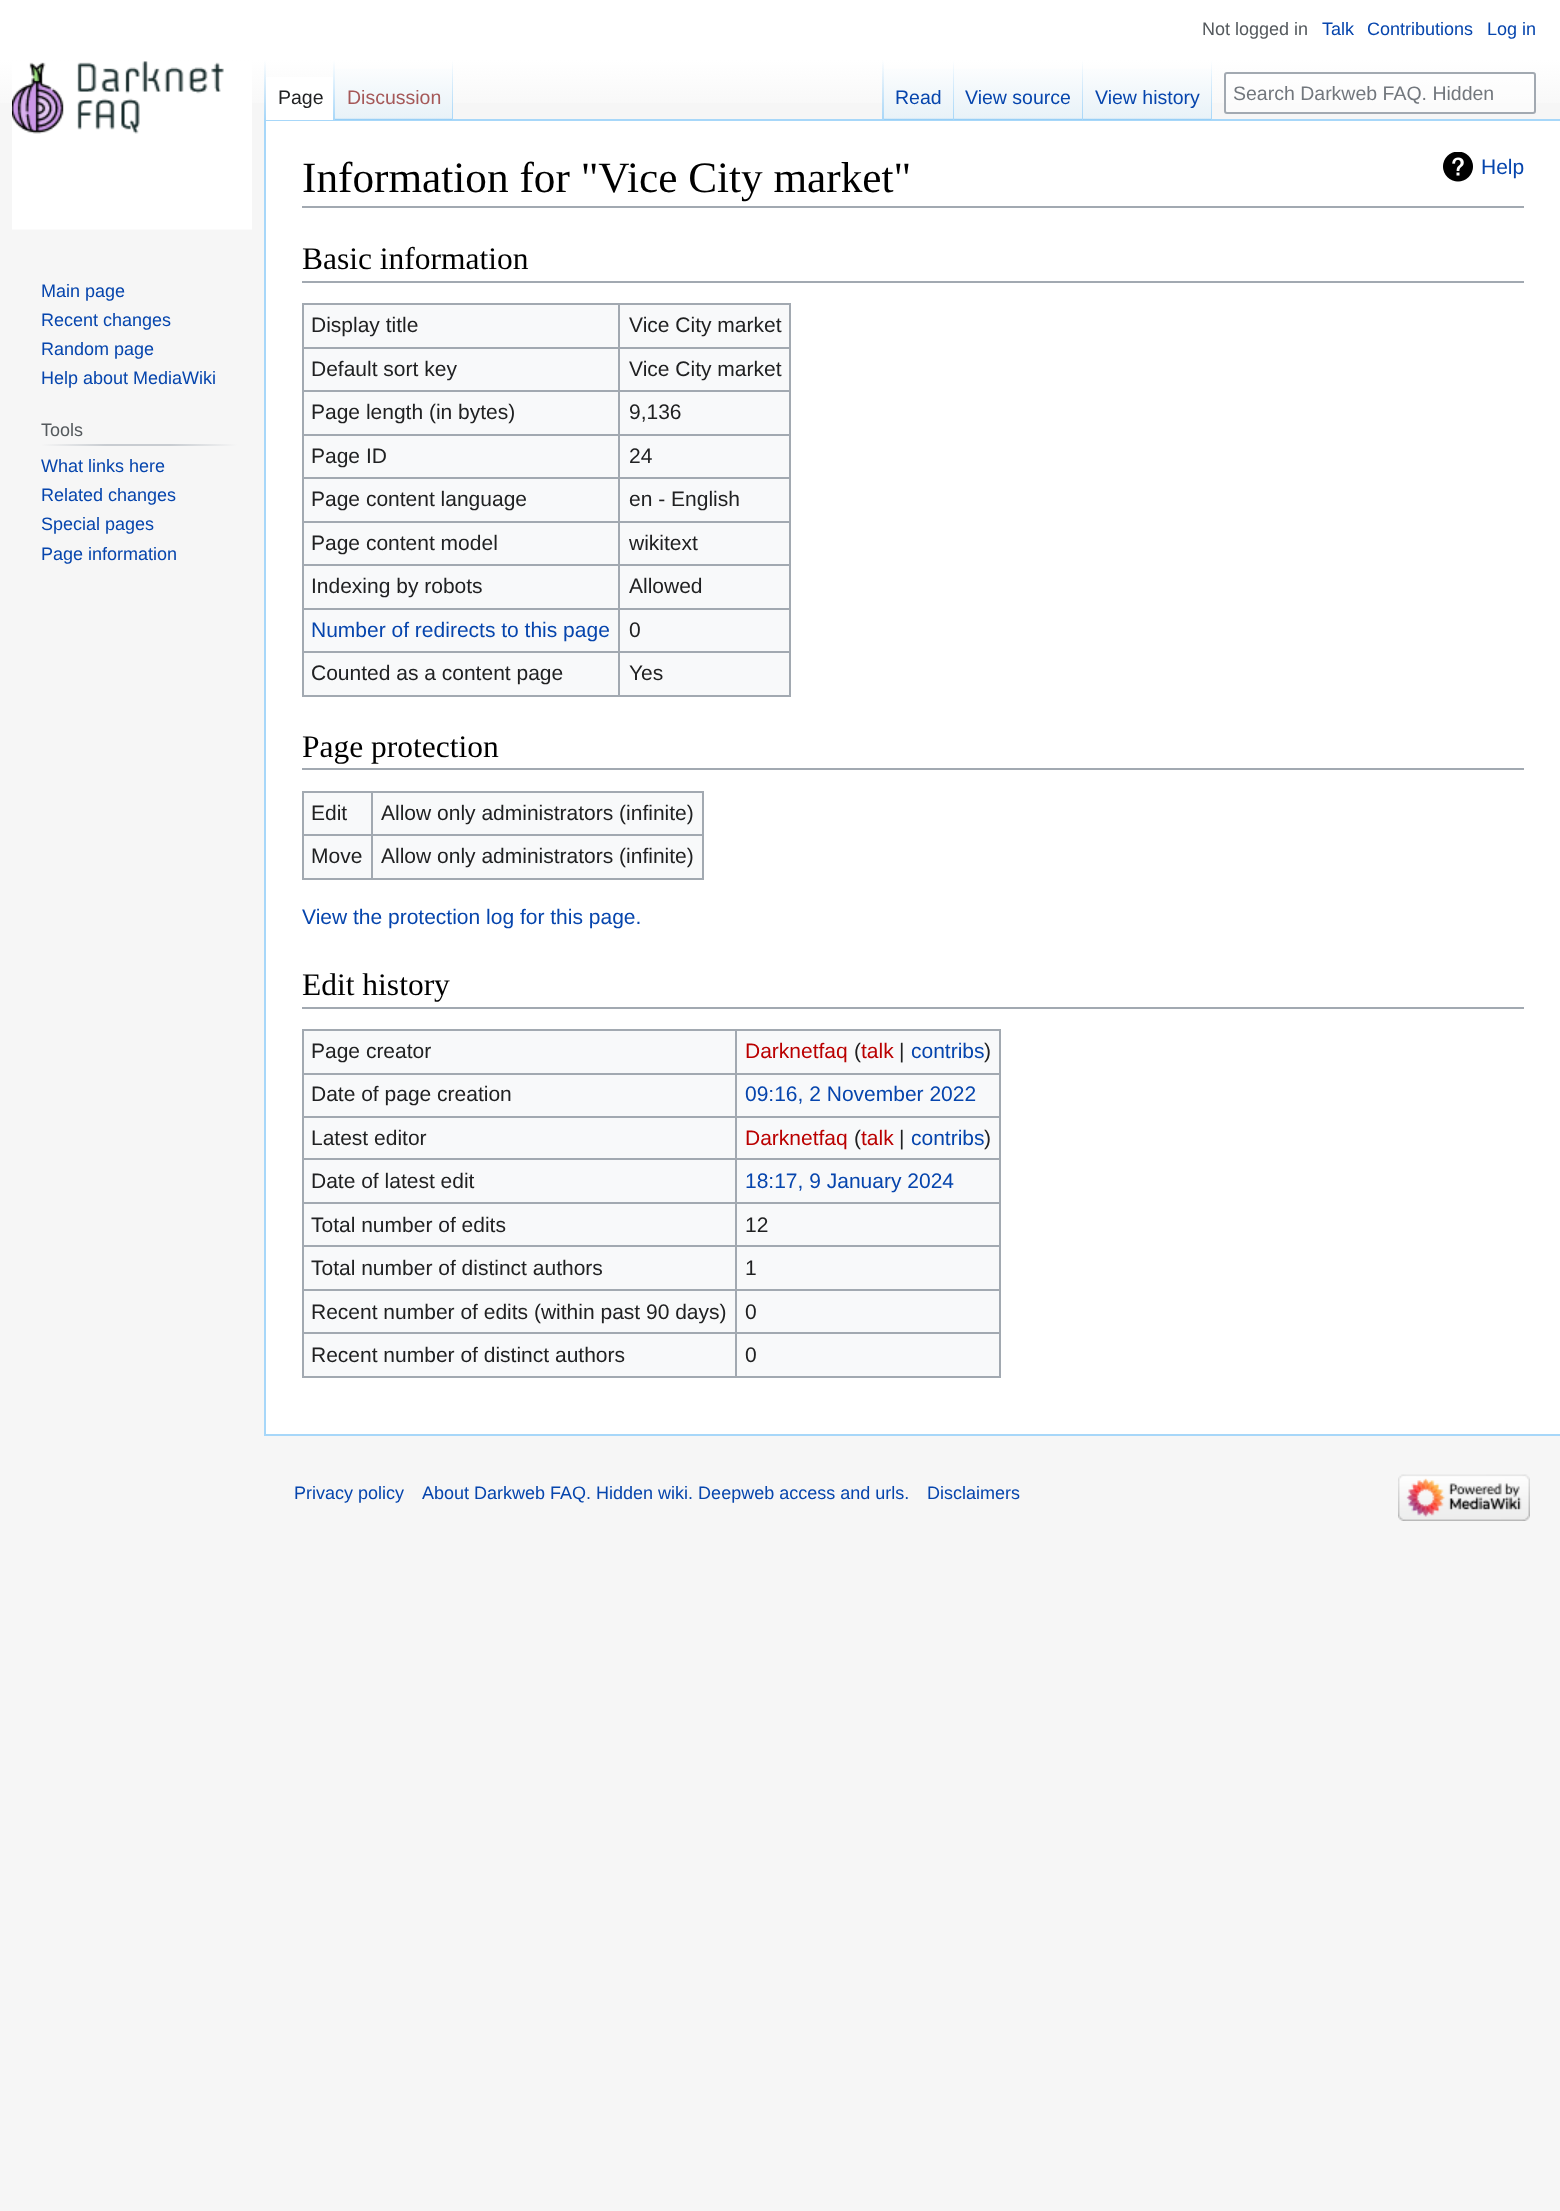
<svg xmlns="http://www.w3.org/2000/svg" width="1560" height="2211">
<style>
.a{font:18px Liberation Sans;fill:#54595d}
.b{font:18px Liberation Sans;fill:#0645ad}
.c{font:19.5px Liberation Sans;fill:#202122}
.d{font:19.5px Liberation Sans;fill:#a55858}
.e{font:19.5px Liberation Sans;fill:#0645ad}
.f{font:19.5px Liberation Sans;fill:#72777d}
.g{font:43.25px Liberation Serif;fill:#000}
.h{font:21px Liberation Sans;fill:#0645ad}
.i{font:31.5px Liberation Serif;fill:#000}
.j{font:21px Liberation Sans;fill:#202122}
.k{font:21px Liberation Sans;fill:#ba0000}
</style>
<defs>
<linearGradient id="g1" gradientUnits="userSpaceOnUse" x1="780" y1="0" x2="780" y2="120"><stop offset="0.5" stop-color="#fff"/><stop offset="1" stop-color="#f6f6f6"/></linearGradient>
<linearGradient id="g2" gradientUnits="userSpaceOnUse" x1="265" y1="60" x2="265" y2="120"><stop offset="0" stop-color="#a7d7f9" stop-opacity="0"/><stop offset="1" stop-color="#a7d7f9"/></linearGradient>
<linearGradient id="g3" gradientUnits="userSpaceOnUse" x1="334" y1="60" x2="334" y2="120"><stop offset="0" stop-color="#fff"/><stop offset="1" stop-color="#a7d7f9"/></linearGradient>
<linearGradient id="g4" gradientUnits="userSpaceOnUse" x1="394" y1="120" x2="394" y2="60"><stop offset="0" stop-color="#77c1f6"/><stop offset="0.03" stop-color="#e8f2f8"/><stop offset="1" stop-color="#fff"/></linearGradient>
<linearGradient id="g5" gradientUnits="userSpaceOnUse" x1="452" y1="60" x2="452" y2="120"><stop offset="0" stop-color="#a7d7f9" stop-opacity="0"/><stop offset="1" stop-color="#a7d7f9"/></linearGradient>
<linearGradient id="g6" gradientUnits="userSpaceOnUse" x1="883" y1="60" x2="883" y2="120"><stop offset="0" stop-color="#a7d7f9" stop-opacity="0"/><stop offset="1" stop-color="#a7d7f9"/></linearGradient>
<linearGradient id="g7" gradientUnits="userSpaceOnUse" x1="919" y1="120" x2="919" y2="60"><stop offset="0" stop-color="#77c1f6"/><stop offset="0.03" stop-color="#e8f2f8"/><stop offset="1" stop-color="#fff"/></linearGradient>
<linearGradient id="g8" gradientUnits="userSpaceOnUse" x1="953" y1="60" x2="953" y2="120"><stop offset="0" stop-color="#a7d7f9" stop-opacity="0"/><stop offset="1" stop-color="#a7d7f9"/></linearGradient>
<linearGradient id="g9" gradientUnits="userSpaceOnUse" x1="1019" y1="120" x2="1019" y2="60"><stop offset="0" stop-color="#77c1f6"/><stop offset="0.03" stop-color="#e8f2f8"/><stop offset="1" stop-color="#fff"/></linearGradient>
<linearGradient id="g10" gradientUnits="userSpaceOnUse" x1="1082" y1="60" x2="1082" y2="120"><stop offset="0" stop-color="#a7d7f9" stop-opacity="0"/><stop offset="1" stop-color="#a7d7f9"/></linearGradient>
<linearGradient id="g11" gradientUnits="userSpaceOnUse" x1="1148" y1="120" x2="1148" y2="60"><stop offset="0" stop-color="#77c1f6"/><stop offset="0.03" stop-color="#e8f2f8"/><stop offset="1" stop-color="#fff"/></linearGradient>
<linearGradient id="g12" gradientUnits="userSpaceOnUse" x1="1211" y1="60" x2="1211" y2="120"><stop offset="0" stop-color="#a7d7f9" stop-opacity="0"/><stop offset="1" stop-color="#a7d7f9"/></linearGradient>
<linearGradient id="g13" gradientUnits="userSpaceOnUse" x1="41" y1="445" x2="237" y2="445"><stop offset="0" stop-color="#f6f6f6"/><stop offset="0.33" stop-color="#c8ccd1"/><stop offset="0.66" stop-color="#c8ccd1"/><stop offset="1" stop-color="#f6f6f6"/></linearGradient>
<clipPath id="clip1"><path d="M1233 83h260v22H1233z"/></clipPath>
</defs>
<rect width="100%" height="100%" fill="#f6f6f6"/>
<path fill="url(#g1)" d="M0 0h1560v103H0z"/>
<path fill="#a7d7f9" d="M264 119h1296v2H264z"/>
<path fill="#a7d7f9" d="M264 1434h1296v2H264z"/>
<path fill="#a7d7f9" d="M264 119h2v1317H264z"/>
<path fill="url(#g2)" d="M264 60h2v60H264z"/>
<path fill="#fff" d="M266 77h67v43H266z"/>
<path fill="url(#g3)" d="M333 60h2v60H333z"/>
<path fill="url(#g4)" d="M335 69h118v51H335z"/>
<path fill="url(#g5)" d="M452 60h1v60H452z"/>
<path fill="url(#g6)" d="M882 60h2v60H882z"/>
<path fill="url(#g7)" d="M884 69h70v51H884z"/>
<path fill="url(#g8)" d="M953 60h1v60H953z"/>
<path fill="url(#g9)" d="M954 69h129v51H954z"/>
<path fill="url(#g10)" d="M1082 60h1v60H1082z"/>
<path fill="url(#g11)" d="M1083 69h129v51H1083z"/>
<path fill="url(#g12)" d="M1211 60h1v60H1211z"/>
<rect fill="#ffffff80" stroke="#a2a9b1" stroke-width="2" x="1225" y="73" width="310" height="40" rx="2"/>
<image href="1.png" x="12" y="61" width="240" height="169"/>
<path fill="url(#g13)" d="M41 444h196v2H41z"/>
<path fill="#fff" d="M266 121h1294v1313H266z"/>
<path fill="#a2a9b1" d="M302 206h1222v2H302z"/>
<image href="2.png" x="1443" y="152" width="30" height="30"/>
<path fill="#a2a9b1" d="M302 281h1222v2H302z"/>
<path fill="#f8f9fa" d="M304 305h485v390H304z"/>
<path fill="#a2a9b1" d="M302 303h489v2H302z"/>
<path fill="#a2a9b1" d="M789 303h2v393H789z"/>
<path fill="#a2a9b1" d="M302 695h489v2H302z"/>
<path fill="#a2a9b1" d="M302 303h2v393H302z"/>
<path fill="#a2a9b1" d="M618 347h173v2H618z"/>
<path fill="#a2a9b1" d="M618 390h173v2H618z"/>
<path fill="#a2a9b1" d="M618 434h173v2H618z"/>
<path fill="#a2a9b1" d="M618 477h173v2H618z"/>
<path fill="#a2a9b1" d="M618 521h173v2H618z"/>
<path fill="#a2a9b1" d="M618 564h173v2H618z"/>
<path fill="#a2a9b1" d="M618 608h173v2H618z"/>
<path fill="#a2a9b1" d="M618 651h173v2H618z"/>
<path fill="#a2a9b1" d="M618 651h2v45H618z"/>
<path fill="#a2a9b1" d="M302 651h318v2H302z"/>
<path fill="#a2a9b1" d="M618 608h2v45H618z"/>
<path fill="#a2a9b1" d="M302 608h318v2H302z"/>
<path fill="#a2a9b1" d="M618 564h2v45H618z"/>
<path fill="#a2a9b1" d="M302 564h318v2H302z"/>
<path fill="#a2a9b1" d="M618 521h2v45H618z"/>
<path fill="#a2a9b1" d="M302 521h318v2H302z"/>
<path fill="#a2a9b1" d="M618 477h2v45H618z"/>
<path fill="#a2a9b1" d="M302 477h318v2H302z"/>
<path fill="#a2a9b1" d="M618 434h2v45H618z"/>
<path fill="#a2a9b1" d="M302 434h318v2H302z"/>
<path fill="#a2a9b1" d="M618 390h2v45H618z"/>
<path fill="#a2a9b1" d="M302 390h318v2H302z"/>
<path fill="#a2a9b1" d="M618 347h2v45H618z"/>
<path fill="#a2a9b1" d="M302 347h318v2H302z"/>
<path fill="#a2a9b1" d="M618 303h2v45H618z"/>
<path fill="#a2a9b1" d="M302 768h1222v2H302z"/>
<path fill="#f8f9fa" d="M304 793h398v85H304z"/>
<path fill="#a2a9b1" d="M302 791h402v2H302z"/>
<path fill="#a2a9b1" d="M702 791h2v88H702z"/>
<path fill="#a2a9b1" d="M302 878h402v2H302z"/>
<path fill="#a2a9b1" d="M302 791h2v88H302z"/>
<path fill="#a2a9b1" d="M371 834h333v2H371z"/>
<path fill="#a2a9b1" d="M371 834h2v45H371z"/>
<path fill="#a2a9b1" d="M302 834h70v2H302z"/>
<path fill="#a2a9b1" d="M371 791h2v45H371z"/>
<path fill="#a2a9b1" d="M302 1007h1222v2H302z"/>
<path fill="#f8f9fa" d="M304 1031h695v345H304z"/>
<path fill="#a2a9b1" d="M302 1029h699v2H302z"/>
<path fill="#a2a9b1" d="M999 1029h2v348H999z"/>
<path fill="#a2a9b1" d="M302 1376h699v2H302z"/>
<path fill="#a2a9b1" d="M302 1029h2v348H302z"/>
<path fill="#a2a9b1" d="M735 1073h266v2H735z"/>
<path fill="#a2a9b1" d="M735 1116h266v2H735z"/>
<path fill="#a2a9b1" d="M735 1158h266v2H735z"/>
<path fill="#a2a9b1" d="M735 1202h266v2H735z"/>
<path fill="#a2a9b1" d="M735 1245h266v2H735z"/>
<path fill="#a2a9b1" d="M735 1289h266v2H735z"/>
<path fill="#a2a9b1" d="M735 1332h266v2H735z"/>
<path fill="#a2a9b1" d="M735 1332h2v45H735z"/>
<path fill="#a2a9b1" d="M302 1332h435v2H302z"/>
<path fill="#a2a9b1" d="M735 1289h2v45H735z"/>
<path fill="#a2a9b1" d="M302 1289h435v2H302z"/>
<path fill="#a2a9b1" d="M735 1245h2v45H735z"/>
<path fill="#a2a9b1" d="M302 1245h435v2H302z"/>
<path fill="#a2a9b1" d="M735 1202h2v45H735z"/>
<path fill="#a2a9b1" d="M302 1202h435v2H302z"/>
<path fill="#a2a9b1" d="M735 1158h2v45H735z"/>
<path fill="#a2a9b1" d="M302 1158h435v2H302z"/>
<path fill="#a2a9b1" d="M735 1116h2v44H735z"/>
<path fill="#a2a9b1" d="M302 1116h435v2H302z"/>
<path fill="#a2a9b1" d="M735 1073h2v45H735z"/>
<path fill="#a2a9b1" d="M302 1073h435v2H302z"/>
<path fill="#a2a9b1" d="M735 1029h2v45H735z"/>
<image href="3.png" x="1398" y="1474" width="132" height="47"/>
<text class="a" x="1202" y="35">Not logged in</text>
<text class="b" x="1322" y="35">Talk</text>
<text class="b" x="1367" y="35">Contributions</text>
<text class="b" x="1487" y="35">Log in</text>
<text class="c" x="278" y="104">Page</text>
<text class="d" x="347" y="104">Discussion</text>
<text class="e" x="895" y="104">Read</text>
<text class="e" x="965" y="104">View source</text>
<text class="e" x="1095" y="104">View history</text>
<g clip-path="url(#clip1)">
<text class="f" x="1233" y="100">Search Darkweb FAQ. Hidden</text>
</g>
<text class="b" x="41" y="297">Main page</text>
<text class="b" x="41" y="326">Recent changes</text>
<text class="b" x="41" y="355">Random page</text>
<text class="b" x="41" y="384">Help about MediaWiki</text>
<text class="a" x="41" y="436">Tools</text>
<text class="b" x="41" y="472">What links here</text>
<text class="b" x="41" y="501">Related changes</text>
<text class="b" x="41" y="530">Special pages</text>
<text class="b" x="41" y="560">Page information</text>
<text class="g" x="302" y="192">Information for "Vice City market"</text>
<text class="h" x="1481" y="174">Help</text>
<text class="i" x="302" y="269">Basic information</text>
<text class="j" x="311" y="332">Display title</text>
<text class="j" x="629" y="332">Vice City market</text>
<text class="j" x="311" y="376">Default sort key</text>
<text class="j" x="629" y="376">Vice City market</text>
<text class="j" x="311" y="419">Page length (in bytes)</text>
<text class="j" x="629" y="419">9,136</text>
<text class="j" x="311" y="463">Page ID</text>
<text class="j" x="629" y="463">24</text>
<text class="j" x="311" y="506">Page content language</text>
<text class="j" x="629" y="506">en - English</text>
<text class="j" x="311" y="550">Page content model</text>
<text class="j" x="629" y="550">wikitext</text>
<text class="j" x="311" y="593">Indexing by robots</text>
<text class="j" x="629" y="593">Allowed</text>
<text class="h" x="311" y="637">Number of redirects to this page</text>
<text class="j" x="629" y="637">0</text>
<text class="j" x="311" y="680">Counted as a content page</text>
<text class="j" x="629" y="680">Yes</text>
<text class="i" x="302" y="757">Page protection</text>
<text class="j" x="311" y="820">Edit</text>
<text class="j" x="381" y="820">Allow only administrators (infinite)</text>
<text class="j" x="311" y="863">Move</text>
<text class="j" x="381" y="863">Allow only administrators (infinite)</text>
<text class="h" x="302" y="924">View the protection log for this page.</text>
<text class="i" x="302" y="995">Edit history</text>
<text class="j" x="311" y="1058">Page creator</text>
<text class="k" x="745" y="1058">Darknetfaq</text>
<text class="j" x="854" y="1058">(</text>
<text class="k" x="861" y="1058">talk</text>
<text class="j" x="899" y="1058">|</text>
<text class="h" x="911" y="1058">contribs</text>
<text class="j" x="984" y="1058">)</text>
<text class="j" x="311" y="1101">Date of page creation</text>
<text class="h" x="745" y="1101">09:16, 2 November 2022</text>
<text class="j" x="311" y="1145">Latest editor</text>
<text class="k" x="745" y="1145">Darknetfaq</text>
<text class="j" x="854" y="1145">(</text>
<text class="k" x="861" y="1145">talk</text>
<text class="j" x="899" y="1145">|</text>
<text class="h" x="911" y="1145">contribs</text>
<text class="j" x="984" y="1145">)</text>
<text class="j" x="311" y="1188">Date of latest edit</text>
<text class="h" x="745" y="1188">18:17, 9 January 2024</text>
<text class="j" x="311" y="1232">Total number of edits</text>
<text class="j" x="745" y="1232">12</text>
<text class="j" x="311" y="1275">Total number of distinct authors</text>
<text class="j" x="745" y="1275">1</text>
<text class="j" x="311" y="1319">Recent number of edits (within past 90 days)</text>
<text class="j" x="745" y="1319">0</text>
<text class="j" x="311" y="1362">Recent number of distinct authors</text>
<text class="j" x="745" y="1362">0</text>
<text class="b" x="294" y="1499">Privacy policy</text>
<text class="b" x="422" y="1499">About Darkweb FAQ. Hidden wiki. Deepweb access and urls.</text>
<text class="b" x="927" y="1499">Disclaimers</text>
</svg>
